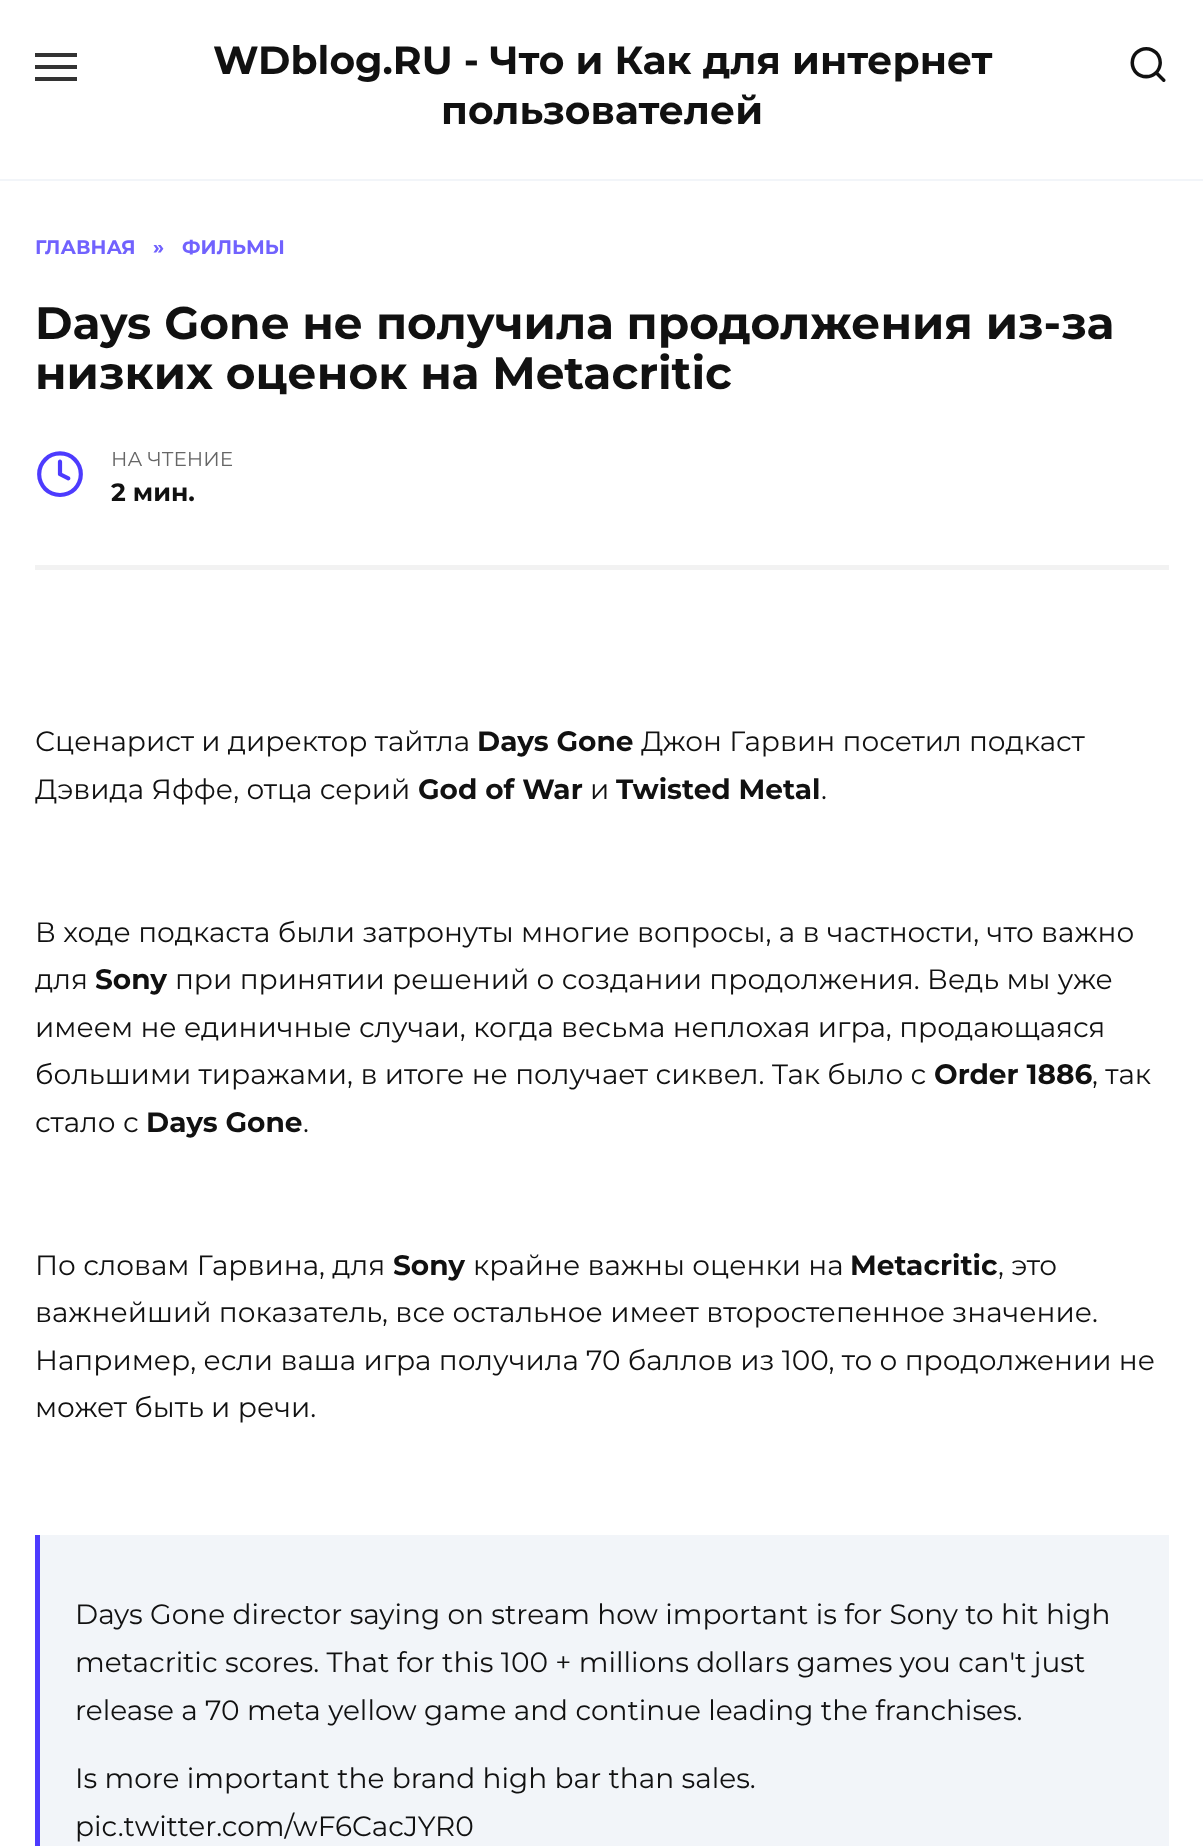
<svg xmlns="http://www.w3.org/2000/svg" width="1203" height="1846">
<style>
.a{font:bold 39.25px Montserrat;fill:#111}
.b{font:42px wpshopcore;fill:#111}
.c{font:bold 19.5px Montserrat;fill:#7162fe}
.d{font:bold 45.5px Montserrat;fill:#111}
.e{font:50px wpshopcore;fill:#4d3bfe}
.f{font:20px Montserrat;fill:#666}
.g{font:bold 25px Montserrat;fill:#111}
.h{font:28px Montserrat;fill:#111}
.i{font:bold 28px Montserrat;fill:#111}
</style>
<rect width="100%" height="100%" fill="#fff"/>
<path fill="#f2f5f9" d="M0 179h1203v2H0z"/>
<path fill="#333" d="M35 53h42v4H35z"/>
<path fill="#333" d="M35 65h42v4H35z"/>
<path fill="#333" d="M35 77h42v4H35z"/>
<path fill="#f2f2f2" d="M35 565h1134v5H35z"/>
<path fill="#f2f5f9" d="M40 1535h1129v311H40z"/>
<path fill="#4d3bfe" d="M35 1535h5v311H35z"/>
<text class="a" x="213" y="74">WDblog.RU - Что и Как для интернет</text>
<text class="a" x="441" y="124">пользователей</text>
<text class="b" x="1127" y="82">🔍</text>
<text class="c" x="35" y="254">ГЛАВНАЯ</text>
<text class="c" x="153" y="254">»</text>
<text class="c" x="182" y="254">ФИЛЬМЫ</text>
<text class="d" x="35" y="339">Days Gone не получила продолжения из-за</text>
<text class="d" x="35" y="389">низких оценок на Metacritic</text>
<text class="e" x="35" y="495">🕒</text>
<text class="f" x="111" y="466">НА ЧТЕНИЕ</text>
<text class="g" x="111" y="501">2 мин.</text>
<text class="h" x="35" y="751">Сценарист и директор тайтла</text>
<text class="i" x="477" y="751">Days Gone</text>
<text class="h" x="641" y="751">Джон Гарвин посетил подкаст</text>
<text class="h" x="35" y="799">Дэвида Яффе, отца серий</text>
<text class="i" x="418" y="799">God of War</text>
<text class="h" x="590" y="799">и</text>
<text class="i" x="616" y="799">Twisted Metal</text>
<text class="h" x="821" y="799">.</text>
<text class="h" x="35" y="942">В ходе подкаста были затронуты многие вопросы, а в частности, что важно</text>
<text class="h" x="35" y="989">для</text>
<text class="i" x="95" y="989">Sony</text>
<text class="h" x="175" y="989">при принятии решений о создании продолжения. Ведь мы уже</text>
<text class="h" x="35" y="1037">имеем не единичные случаи, когда весьма неплохая игра, продающаяся</text>
<text class="h" x="35" y="1084">большими тиражами, в итоге не получает сиквел. Так было с</text>
<text class="i" x="934" y="1084">Order 1886</text>
<text class="h" x="1092" y="1084">, так</text>
<text class="h" x="35" y="1132">стало с</text>
<text class="i" x="146" y="1132">Days Gone</text>
<text class="h" x="303" y="1132">.</text>
<text class="h" x="35" y="1275">По словам Гарвина, для</text>
<text class="i" x="393" y="1275">Sony</text>
<text class="h" x="473" y="1275">крайне важны оценки на</text>
<text class="i" x="850" y="1275">Metacritic</text>
<text class="h" x="998" y="1275">, это</text>
<text class="h" x="35" y="1322">важнейший показатель, все остальное имеет второстепенное значение.</text>
<text class="h" x="35" y="1370">Например, если ваша игра получила 70 баллов из 100, то о продолжении не</text>
<text class="h" x="35" y="1417">может быть и речи.</text>
<text class="h" x="75" y="1624">Days Gone director saying on stream how important is for Sony to hit high</text>
<text class="h" x="75" y="1672">metacritic scores. That for this 100 + millions dollars games you can't just</text>
<text class="h" x="75" y="1720">release a 70 meta yellow game and continue leading the franchises.</text>
<text class="h" x="75" y="1788">Is more important the brand high bar than sales.</text>
<text class="h" x="75" y="1836">pic.twitter.com/wF6CacJYR0</text>
</svg>
